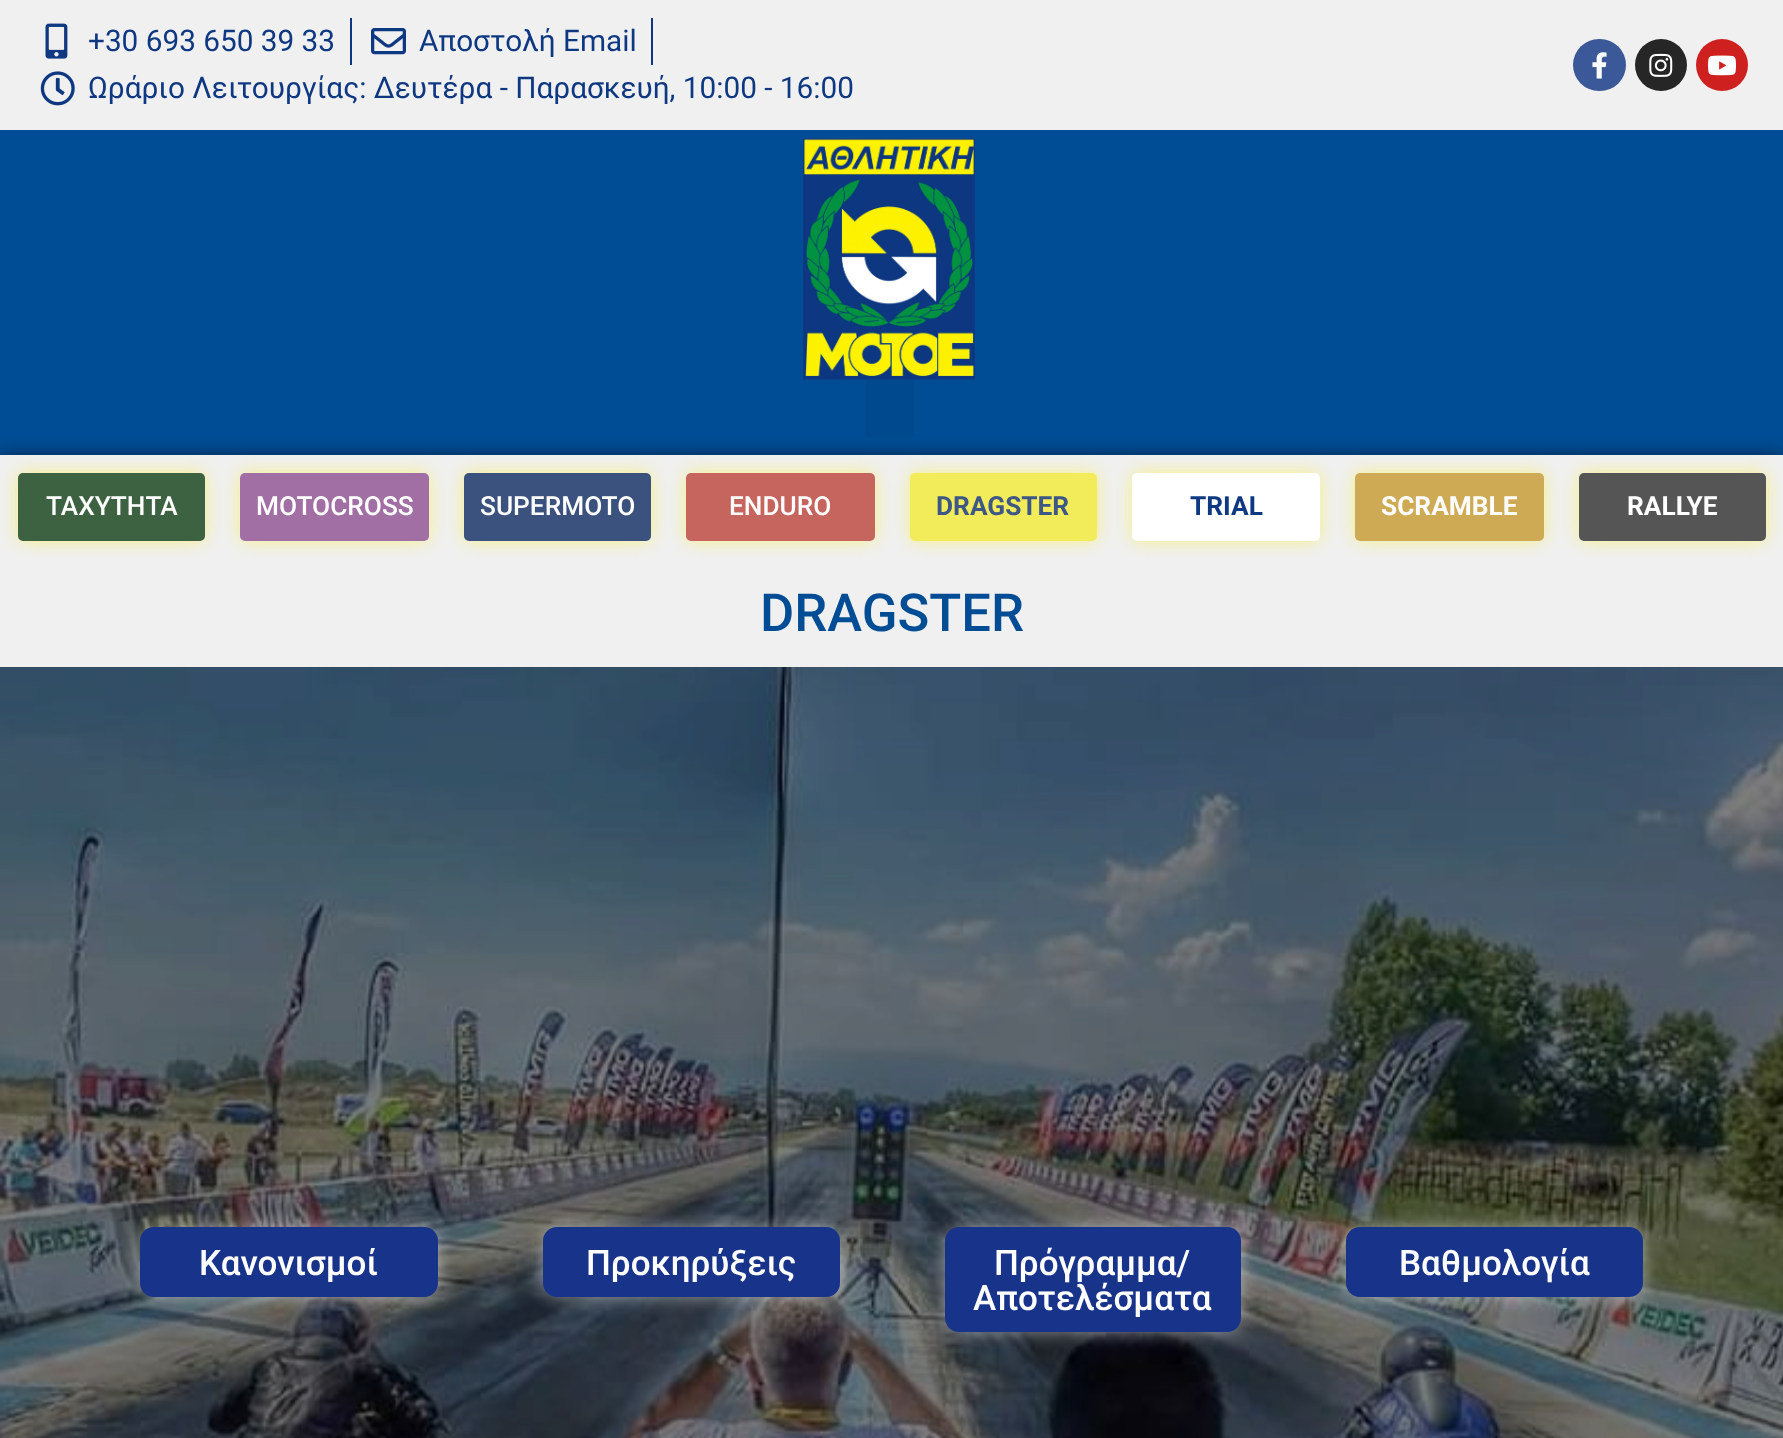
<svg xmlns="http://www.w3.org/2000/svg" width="1783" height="1438">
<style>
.a{font:29.75px Roboto;fill:#0e3882}
.b{font:500 26.25px Roboto;fill:#fff}
.c{font:bold 26.25px Roboto;fill:#3d5786}
.d{font:bold 26.25px Roboto;fill:#0e3882}
.e{font:bold 26.25px Roboto;fill:#fff}
.f{font:500 52.5px Roboto;fill:#004d95}
.g{font:500 35px Roboto;fill:#fff}
</style>
<rect width="100%" height="100%" fill="#004d95"/>
<path fill="#f0f0f0" d="M0 0h1783v130H0z"/>
<image href="1.png" x="45" y="23" width="23" height="36"/>
<path fill="#0f3882" d="M350 18h2v47H350z"/>
<image href="2.png" x="371" y="28" width="35" height="27"/>
<path fill="#0f3882" d="M651 18h2v47H651z"/>
<image href="3.png" x="40" y="71" width="35" height="35"/>
<rect fill="#3b5998" x="1573" y="39" width="53" height="52" rx="26"/>
<image href="4.png" x="1592" y="52" width="15" height="27"/>
<circle fill="#262626" cx="1661" cy="65" r="26"/>
<image href="5.png" x="1649" y="53" width="24" height="24"/>
<circle fill="#cd201f" cx="1722" cy="65" r="26"/>
<image href="6.png" x="1708" y="55" width="28" height="21"/>
<image href="7.png" x="803" y="138" width="172" height="242"/>
<rect fill="#00498e" x="865" y="380" width="49" height="58" rx="5"/>
<path fill="#00000080" filter="blur(9px)" d="M0 455h1783v103H0z"/>
<path fill="#f0f0f0" d="M0 455h1783v103H0z"/>
<rect fill="#fef20070" filter="blur(9px)" x="18" y="473" width="187" height="68" rx="5"/>
<rect fill="#3d6241" x="18" y="473" width="187" height="68" rx="5"/>
<rect fill="#fef20070" filter="blur(9px)" x="240" y="473" width="189" height="68" rx="5"/>
<rect fill="#a16fa4" x="240" y="473" width="189" height="68" rx="5"/>
<rect fill="#fef20070" filter="blur(9px)" x="464" y="473" width="187" height="68" rx="5"/>
<rect fill="#3a527d" x="464" y="473" width="187" height="68" rx="5"/>
<rect fill="#fef20070" filter="blur(9px)" x="686" y="473" width="189" height="68" rx="5"/>
<rect fill="#c5655e" x="686" y="473" width="189" height="68" rx="5"/>
<rect fill="#fef20070" filter="blur(9px)" x="910" y="473" width="187" height="68" rx="5"/>
<rect fill="#f3ec5a" x="910" y="473" width="187" height="68" rx="5"/>
<rect fill="#fef20070" filter="blur(9px)" x="1132" y="473" width="188" height="68" rx="5"/>
<rect fill="#fff" x="1132" y="473" width="188" height="68" rx="5"/>
<rect fill="#fef20070" filter="blur(9px)" x="1355" y="473" width="189" height="68" rx="5"/>
<rect fill="#ceaa55" x="1355" y="473" width="189" height="68" rx="5"/>
<rect fill="#fef20070" filter="blur(9px)" x="1579" y="473" width="187" height="68" rx="5"/>
<rect fill="#555" x="1579" y="473" width="187" height="68" rx="5"/>
<path fill="#f0f0f0" d="M0 558h1783v109H0z"/>
<image href="8.png" x="0" y="667" width="1783" height="771"/>
<rect fill="#ffffff80" filter="blur(9px)" x="140" y="1227" width="298" height="70" rx="14"/>
<rect fill="#18338a" x="140" y="1227" width="298" height="70" rx="14"/>
<rect fill="#ffffff80" filter="blur(9px)" x="543" y="1227" width="297" height="70" rx="14"/>
<rect fill="#18338a" x="543" y="1227" width="297" height="70" rx="14"/>
<rect fill="#ffffff80" filter="blur(9px)" x="945" y="1227" width="296" height="105" rx="14"/>
<rect fill="#18338a" x="945" y="1227" width="296" height="105" rx="14"/>
<rect fill="#ffffff80" filter="blur(9px)" x="1346" y="1227" width="297" height="70" rx="14"/>
<rect fill="#18338a" x="1346" y="1227" width="297" height="70" rx="14"/>
<text class="a" x="88" y="51">+30 693 650 39 33</text>
<text class="a" x="419" y="51">Αποστολή Email</text>
<text class="a" x="88" y="98">Ωράριο Λειτουργίας: Δευτέρα - Παρασκευή, 10:00 - 16:00</text>
<text class="b" x="46" y="515">ΤΑΧΥΤΗΤΑ</text>
<text class="b" x="256" y="515">MOTOCROSS</text>
<text class="b" x="480" y="515">SUPERMOTO</text>
<text class="b" x="729" y="515">ENDURO</text>
<text class="c" x="936" y="515">DRAGSTER</text>
<text class="d" x="1190" y="515">TRIAL</text>
<text class="e" x="1381" y="515">SCRAMBLE</text>
<text class="e" x="1627" y="515">RALLYE</text>
<text class="f" x="760" y="631">DRAGSTER</text>
<text class="g" x="199" y="1275">Κανονισμοί</text>
<text class="g" x="586" y="1275">Προκηρύξεις</text>
<text class="g" x="994" y="1275">Πρόγραμμα/</text>
<text class="g" x="973" y="1310">Αποτελέσματα</text>
<text class="g" x="1399" y="1275">Βαθμολογία</text>
</svg>
